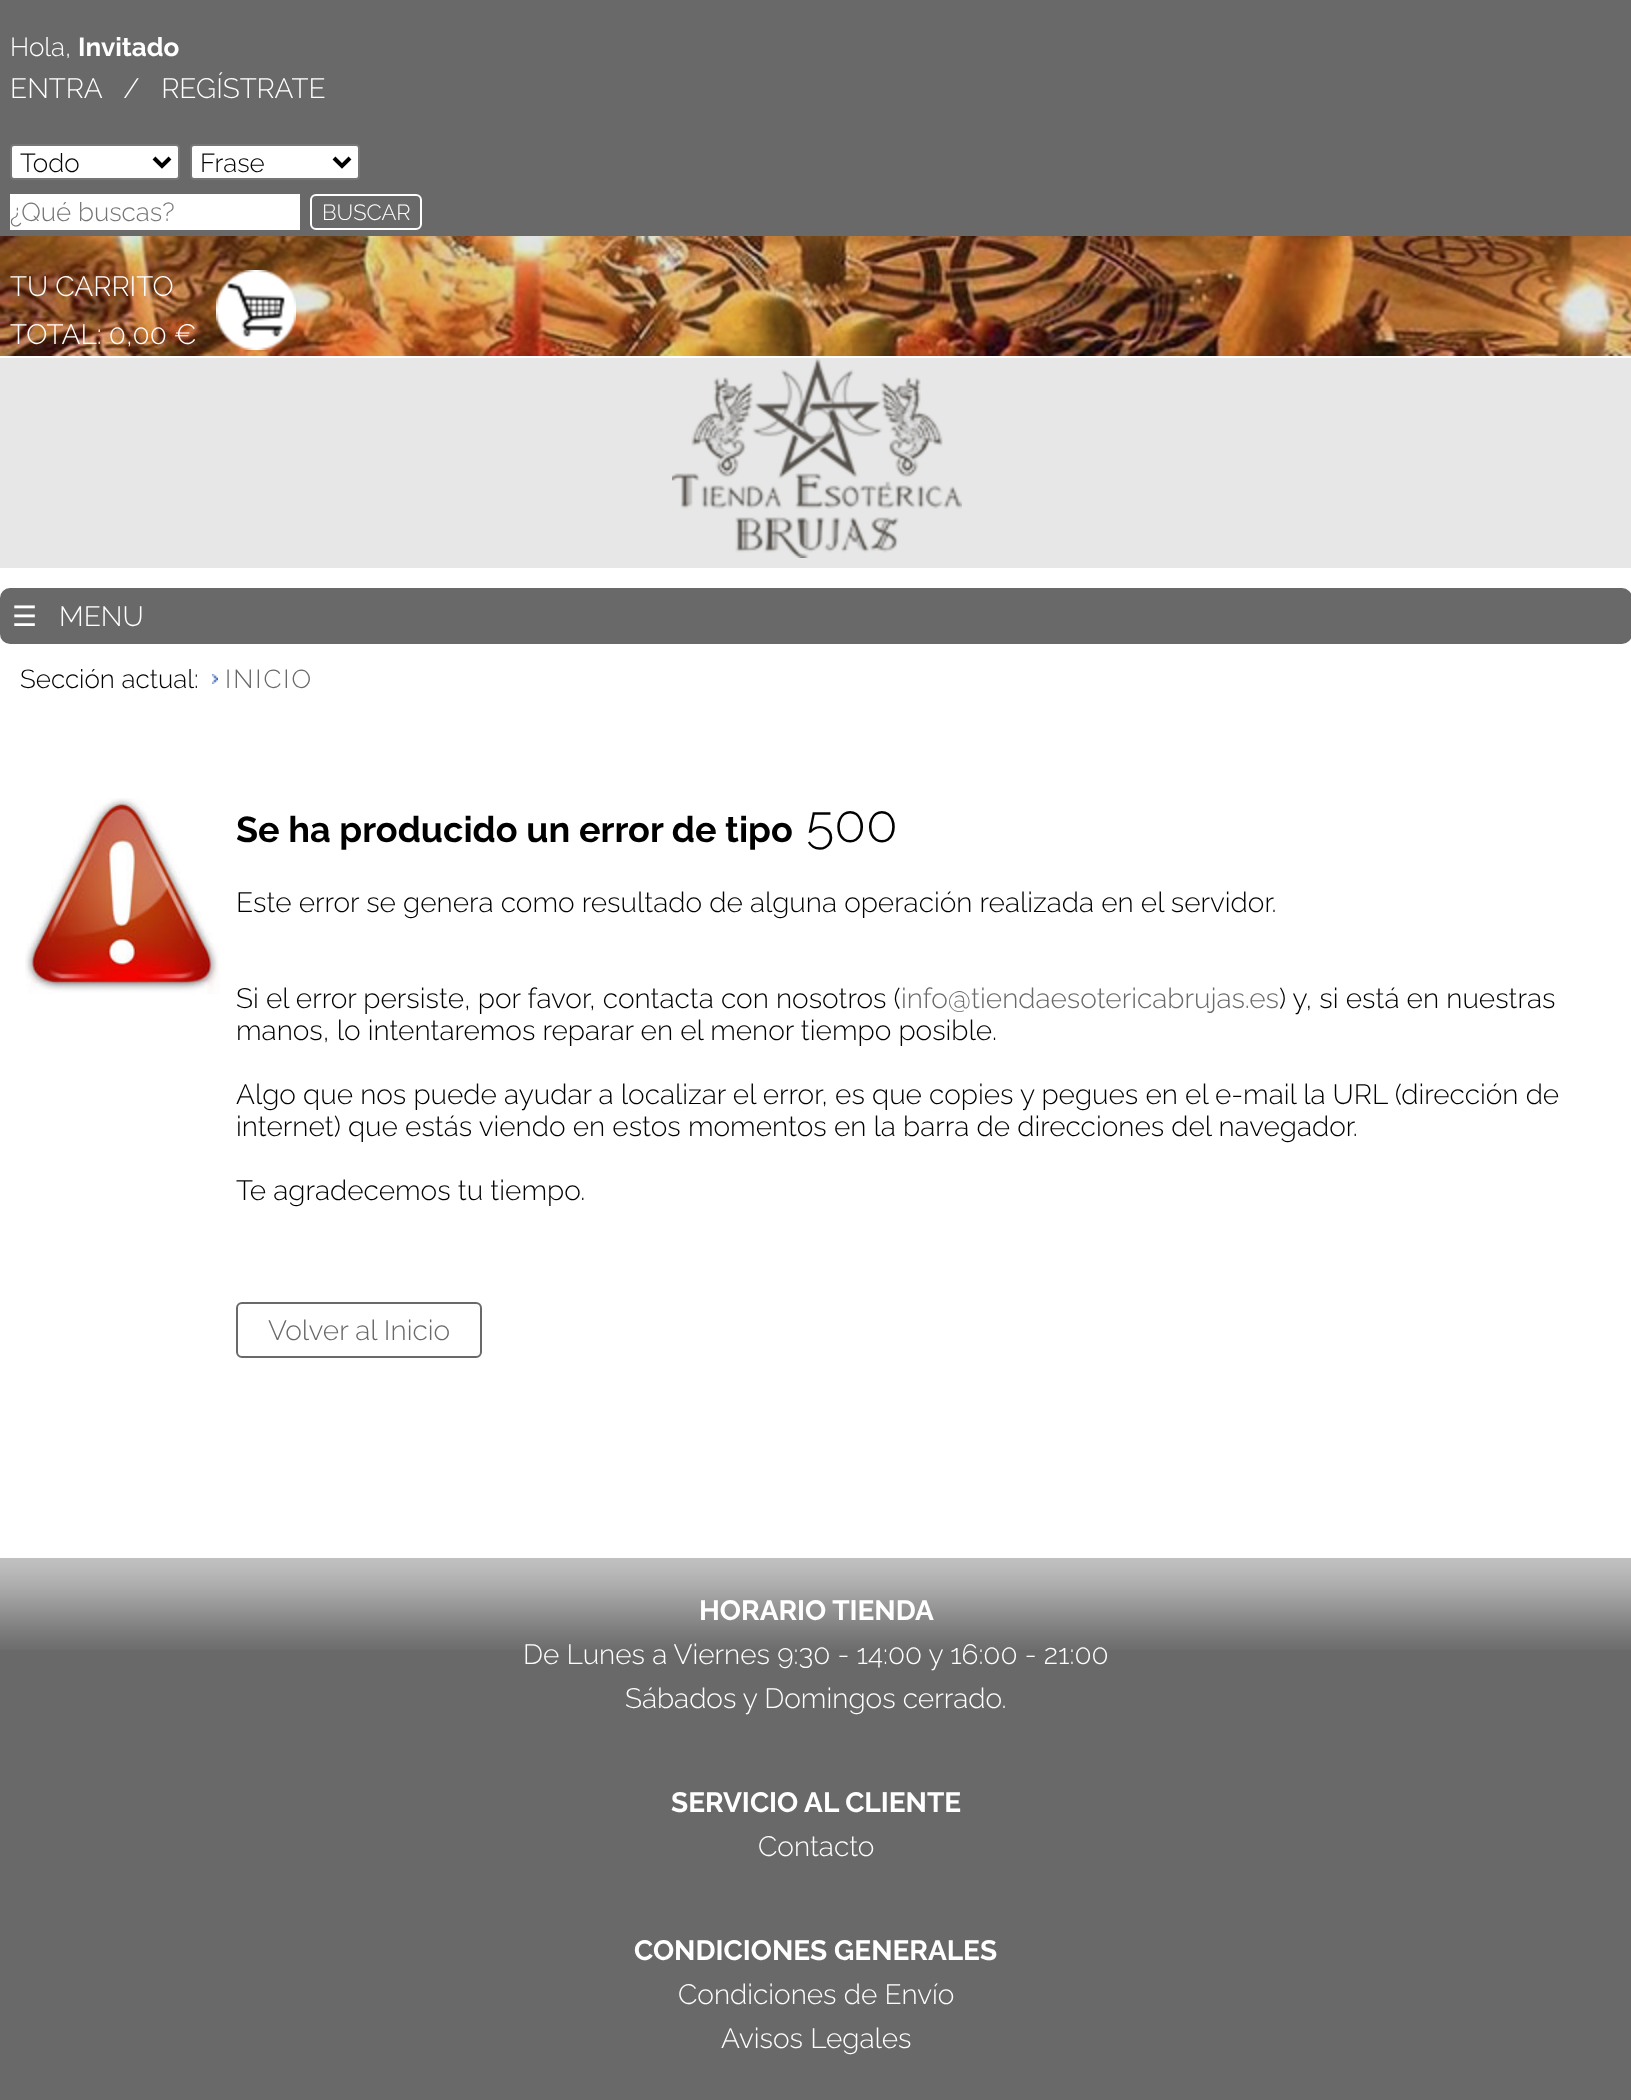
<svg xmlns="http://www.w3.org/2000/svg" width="1631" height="2100">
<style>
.a{font:300 26px Raleway;fill:#fff}
.b{font:bold 26px Raleway;fill:#fff}
.c{font:300 28px Raleway;fill:#fff}
.d{font:300 26px Raleway;fill:#000}
.e{font:300 26px Raleway;fill:#757575}
.f{font:300 22px Raleway;fill:#fff}
.g{font:28px DejaVu Sans;fill:#fff}
.h{font:300 26px Raleway;letter-spacing:2px;fill:#696969}
.i{font:bold 36px Raleway;fill:#000}
.j{font:300 52px Raleway;fill:#000}
.k{font:300 28px Raleway;fill:#000}
.l{font:300 28px Raleway;fill:#696969}
.m{font:bold 28px Raleway;fill:#fff}
</style>
<rect width="100%" height="100%" fill="#fff"/>
<path fill="#696969" d="M0 0h1631v273H0z"/>
<image href="1.png" x="0" y="236" width="1631" height="120"/>
<rect fill="#fff" stroke="#767676" stroke-width="2" x="11" y="145" width="168" height="34" rx="3"/>
<path fill="none" stroke="#000" stroke-width="4" d="M154 158l8 8l8-8"/>
<rect fill="#fff" stroke="#767676" stroke-width="2" x="191" y="145" width="168" height="34" rx="3"/>
<path fill="none" stroke="#000" stroke-width="4" d="M334 158l8 8l8-8"/>
<path fill="#fff" d="M10 194h290v36H10z"/>
<rect fill="none" stroke="#fff" stroke-width="2" x="311" y="195" width="110" height="34" rx="5"/>
<image href="2.png" x="216" y="270" width="80" height="80"/>
<path fill="#e7e7e7" d="M0 358h1631v210H0z"/>
<image href="3.png" x="672" y="358" width="290" height="200"/>
<rect fill="#696969" stroke="#696969" stroke-width="2" x="1" y="589" width="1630" height="54" rx="9"/>
<image href="4.png" x="212" y="674" width="6" height="10"/>
<image href="5.png" x="25" y="798" width="195" height="196"/>
<rect fill="none" stroke="#696969" stroke-width="2" x="237" y="1303" width="244" height="54" rx="5"/>
<path fill="#696969" d="M0 1650h1631v450H0z"/>
<image href="6.png" x="0" y="1558" width="1631" height="92"/>
<text class="a" x="10" y="56">Hola,</text>
<text class="b" x="78" y="56">Invitado</text>
<text class="c" xml:space="preserve" x="10" y="98">ENTRA   /   REGÍSTRATE</text>
<text class="d" x="20" y="172">Todo</text>
<text class="d" x="200" y="172">Frase</text>
<text class="e" x="10" y="221">¿Qué buscas?</text>
<text class="f" x="322" y="220">BUSCAR</text>
<text class="c" x="10" y="296">TU CARRITO</text>
<text class="c" x="10" y="344">TOTAL: 0,00 €</text>
<text class="g" x="12" y="626">☰</text>
<text class="c" x="59" y="626">MENU</text>
<text class="d" x="20" y="688">Sección actual:</text>
<text class="h" x="225" y="688">INICIO</text>
<text class="i" x="236" y="842">Se ha producido un error de tipo</text>
<text class="j" x="806" y="842">500</text>
<text class="k" x="236" y="912">Este error se genera como resultado de alguna operación realizada en el servidor.</text>
<text class="k" x="236" y="1008">Si el error persiste, por favor, contacta con nosotros (</text>
<text class="l" x="901" y="1008">info@tiendaesotericabrujas.es</text>
<text class="k" x="1279" y="1008">) y, si está en nuestras</text>
<text class="k" x="236" y="1040">manos, lo intentaremos reparar en el menor tiempo posible.</text>
<text class="k" x="236" y="1104">Algo que nos puede ayudar a localizar el error, es que copies y pegues en el e-mail la URL (dirección de</text>
<text class="k" x="236" y="1136">internet) que estás viendo en estos momentos en la barra de direcciones del navegador.</text>
<text class="k" x="236" y="1200">Te agradecemos tu tiempo.</text>
<text class="l" x="268" y="1340">Volver al Inicio</text>
<text class="m" x="699" y="1620">HORARIO TIENDA</text>
<text class="c" x="523" y="1664">De Lunes a Viernes 9:30 - 14:00 y 16:00 - 21:00</text>
<text class="c" x="625" y="1708">Sábados y Domingos cerrado.</text>
<text class="m" x="671" y="1812">SERVICIO AL CLIENTE</text>
<text class="c" x="758" y="1856">Contacto</text>
<text class="m" x="634" y="1960">CONDICIONES GENERALES</text>
<text class="c" x="678" y="2004">Condiciones de Envío</text>
<text class="c" x="721" y="2048">Avisos Legales</text>
</svg>
